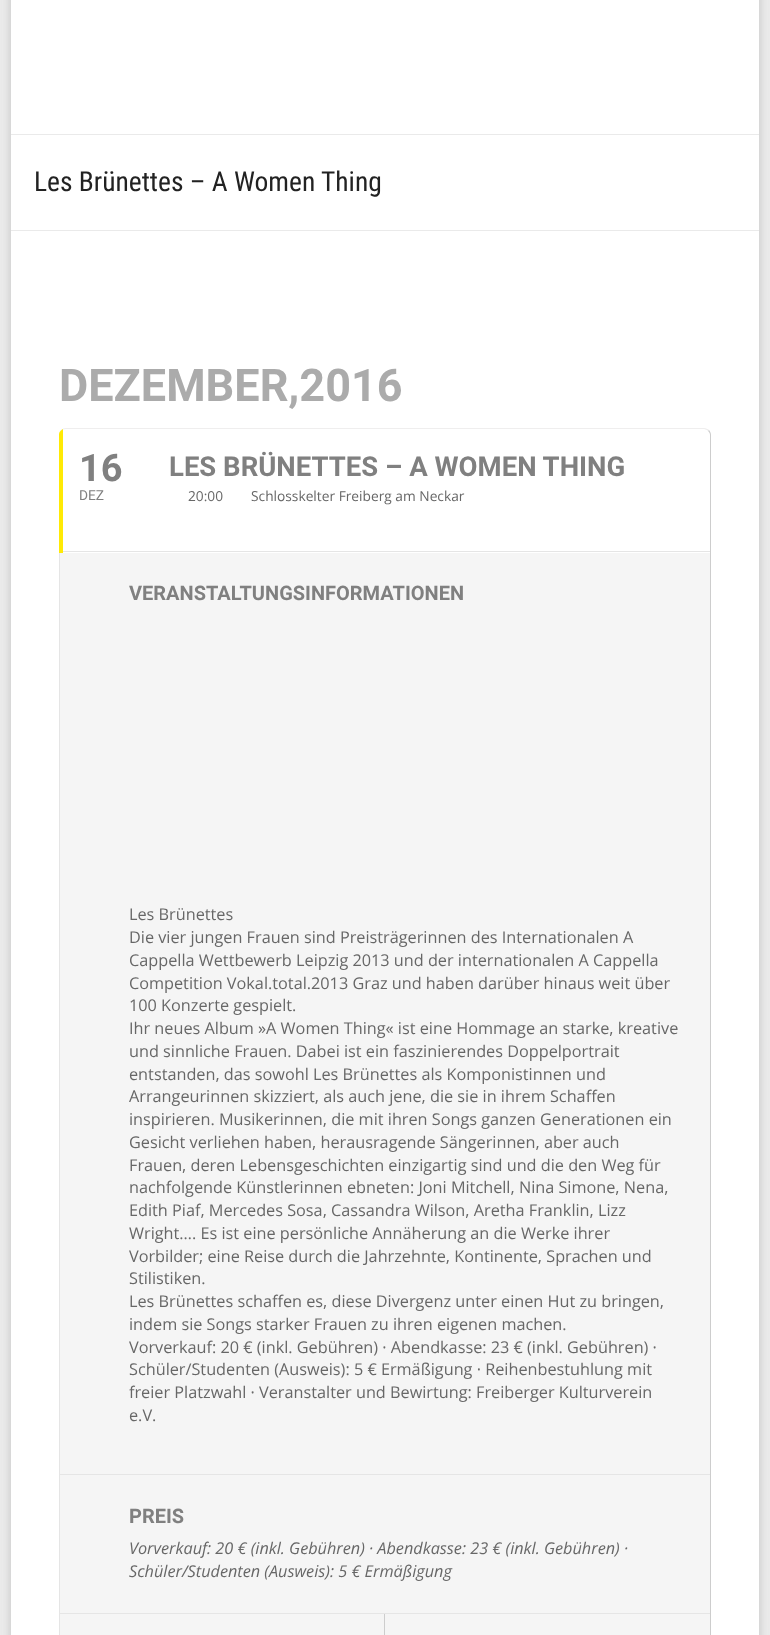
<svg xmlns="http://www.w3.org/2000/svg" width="770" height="1635">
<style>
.a{font:27.5px Roboto Condensed;fill:#222}
.b{font:bold 45px Roboto;fill:#ababab}
.c{font:bold 38px Roboto;fill:#808080}
.d{font:13.75px Roboto;fill:#808080}
.e{font:bold 27.5px Roboto;fill:#808080}
.f{font:13.75px Open Sans;fill:#676767}
.g{font:bold 20px Roboto;fill:#808080}
.h{font:16.25px Open Sans;fill:#676767}
.i{font:italic 16.25px Open Sans;fill:#676767}
</style>
<rect width="100%" height="100%" fill="#eaeaea"/>
<path fill="#6464644d" filter="blur(4px)" d="M11 -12h748v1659H11z"/>
<path fill="#fff" d="M11 0h748v1635H11z"/>
<path fill="#eaeaea" d="M11 134h748v1H11z"/>
<path fill="#eaeaea" d="M11 230h748v1H11z"/>
<path fill="#efeeee" d="M66 428h638c2 0 4 1 5 2l-1 1c-1-1-3-2-4-2h-638c-4 0-7 3-7 6c0-4 3-7 7-7z"/>
<path fill="#cdcdcd" d="M708 431l1-1c1 1 2 3 2 5v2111c0 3-2 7-5 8h-1c3-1 5-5 5-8v-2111c0-2-1-3-2-4z"/>
<path fill="#ffea05" d="M59 434c0-2 2-4 4-5v124h-4z"/>
<path fill="#e5e5e5" d="M63 551h647v1H63z"/>
<path fill="#e5e5e5" d="M59 553h1v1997l-1-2z"/>
<path fill="#f5f5f5" d="M60 553h650v921H60z"/>
<path fill="#e5e5e5" d="M60 1474h650v1H60z"/>
<path fill="#f5f5f5" d="M60 1475h650v138H60z"/>
<path fill="#e5e5e5" d="M60 1613h650v1H60z"/>
<path fill="#f5f5f5" d="M60 1614h650v21H60z"/>
<path fill="#cdcdcd" d="M384 1614h1v21H384z"/>
<text class="a" x="34" y="191">Les Brünettes – A Women Thing</text>
<text class="b" x="59" y="401">DEZEMBER,2016</text>
<text class="c" x="79" y="481">16</text>
<text class="d" x="79" y="500">DEZ</text>
<text class="e" x="169" y="476">LES BRÜNETTES – A WOMEN THING</text>
<text class="f" x="188" y="501">20:00</text>
<text class="f" x="251" y="501">Schlosskelter Freiberg am Neckar</text>
<text class="g" x="129" y="600">VERANSTALTUNGSINFORMATIONEN</text>
<text class="h" x="129" y="920">Les Brünettes</text>
<text class="h" x="129" y="943">Die vier jungen Frauen sind Preisträgerinnen des Internationalen A</text>
<text class="h" x="129" y="966">Cappella Wettbewerb Leipzig 2013 und der internationalen A Cappella</text>
<text class="h" x="129" y="989">Competition Vokal.total.2013 Graz und haben darüber hinaus weit über</text>
<text class="h" x="129" y="1011">100 Konzerte gespielt.</text>
<text class="h" x="129" y="1034">Ihr neues Album »A Women Thing« ist eine Hommage an starke, kreative</text>
<text class="h" x="129" y="1057">und sinnliche Frauen. Dabei ist ein faszinierendes Doppelportrait</text>
<text class="h" x="129" y="1080">entstanden, das sowohl Les Brünettes als Komponistinnen und</text>
<text class="h" x="129" y="1102">Arrangeurinnen skizziert, als auch jene, die sie in ihrem Schaffen</text>
<text class="h" x="129" y="1125">inspirieren. Musikerinnen, die mit ihren Songs ganzen Generationen ein</text>
<text class="h" x="129" y="1148">Gesicht verliehen haben, herausragende Sängerinnen, aber auch</text>
<text class="h" x="129" y="1171">Frauen, deren Lebensgeschichten einzigartig sind und die den Weg für</text>
<text class="h" x="129" y="1193">nachfolgende Künstlerinnen ebneten: Joni Mitchell, Nina Simone, Nena,</text>
<text class="h" x="129" y="1216">Edith Piaf, Mercedes Sosa, Cassandra Wilson, Aretha Franklin, Lizz</text>
<text class="h" x="129" y="1239">Wright…. Es ist eine persönliche Annäherung an die Werke ihrer</text>
<text class="h" x="129" y="1262">Vorbilder; eine Reise durch die Jahrzehnte, Kontinente, Sprachen und</text>
<text class="h" x="129" y="1284">Stilistiken.</text>
<text class="h" x="129" y="1307">Les Brünettes schaffen es, diese Divergenz unter einen Hut zu bringen,</text>
<text class="h" x="129" y="1330">indem sie Songs starker Frauen zu ihren eigenen machen.</text>
<text class="h" x="129" y="1353">Vorverkauf: 20 € (inkl. Gebühren) · Abendkasse: 23 € (inkl. Gebühren) ·</text>
<text class="h" x="129" y="1375">Schüler/Studenten (Ausweis): 5 € Ermäßigung · Reihenbestuhlung mit</text>
<text class="h" x="129" y="1398">freier Platzwahl · Veranstalter und Bewirtung: Freiberger Kulturverein</text>
<text class="h" x="129" y="1421">e.V.</text>
<text class="g" x="129" y="1523">PREIS</text>
<text class="i" x="129" y="1554">Vorverkauf: 20 € (inkl. Gebühren) · Abendkasse: 23 € (inkl. Gebühren) ·</text>
<text class="i" x="129" y="1577">Schüler/Studenten (Ausweis): 5 € Ermäßigung</text>
</svg>
